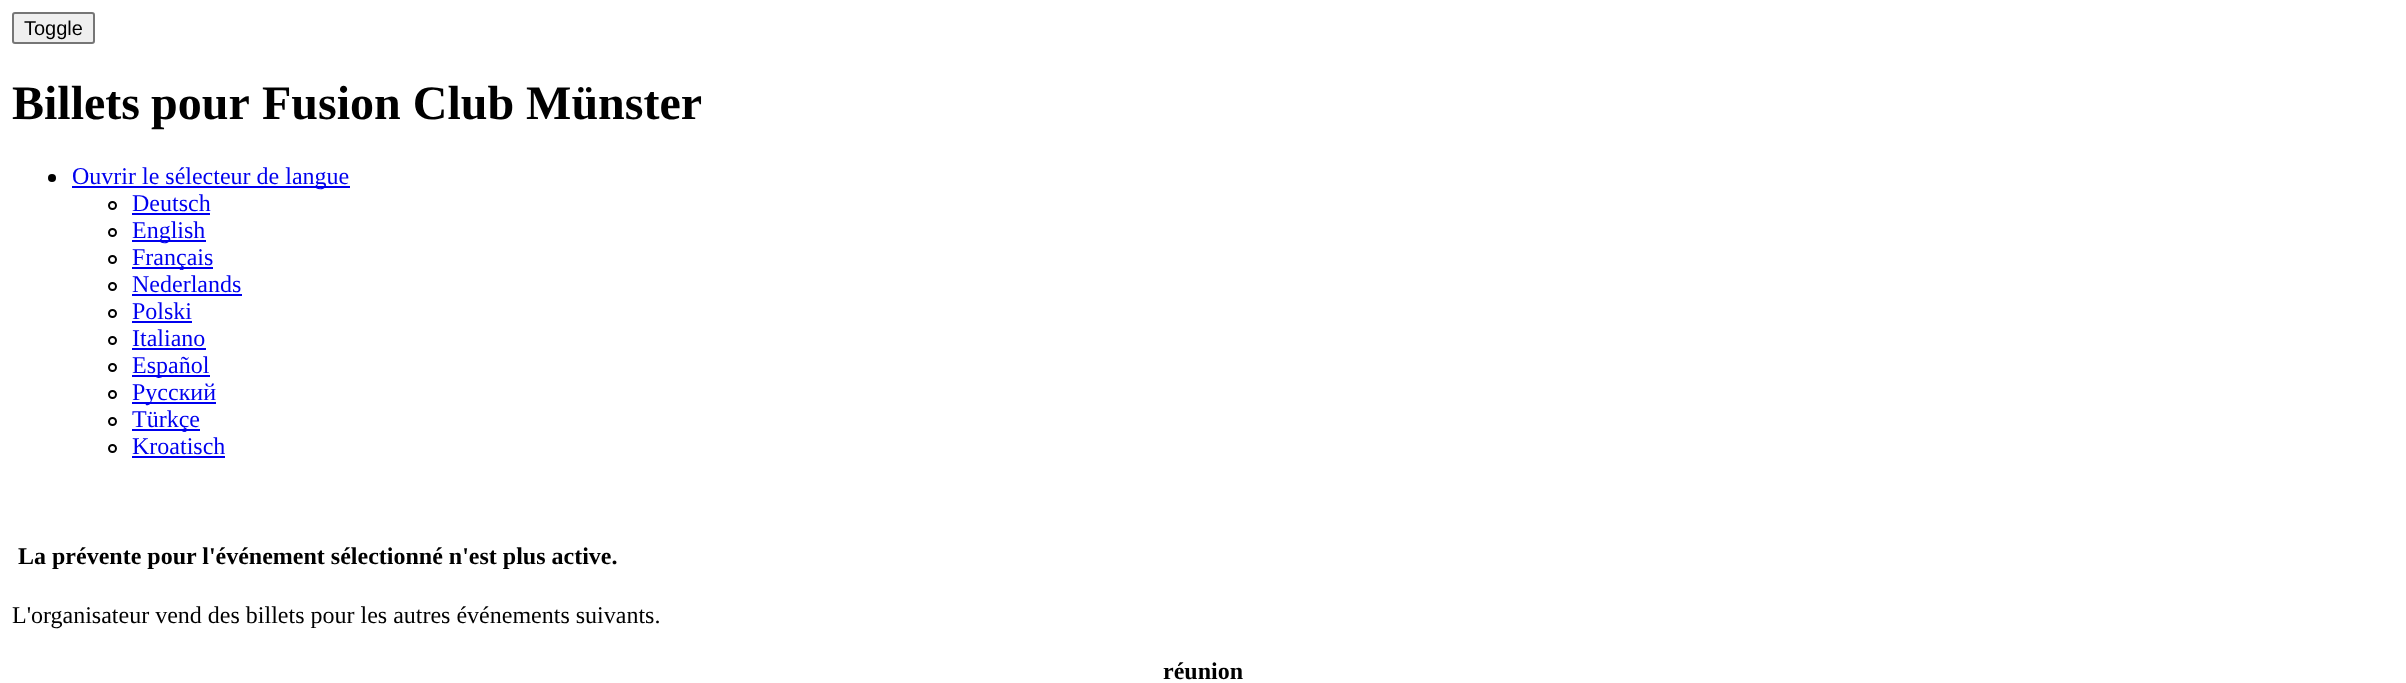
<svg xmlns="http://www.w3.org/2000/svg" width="2406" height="683">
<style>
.a{font:20px Liberation Sans;fill:#000}
.b{font:bold 48px Liberation Serif;fill:#000}
.c{font:24px Liberation Serif;fill:#00e}
.d{font:bold 24px Liberation Serif;fill:#000}
.e{font:24px Liberation Serif;fill:#000}
</style>
<rect width="100%" height="100%" fill="#fff"/>
<rect fill="#efefef" stroke="#767676" stroke-width="2" x="13" y="13" width="81" height="30" rx="2"/>
<circle fill="#000" cx="52" cy="178" r="4"/>
<path fill="#00e" d="M72 186h278v2H72z"/>
<circle fill="none" stroke="#000" stroke-width="2" cx="112.5" cy="205.5" r="3.5"/>
<path fill="#00e" d="M132 213h78v2H132z"/>
<circle fill="none" stroke="#000" stroke-width="2" cx="112.5" cy="232.5" r="3.5"/>
<path fill="#00e" d="M132 240h74v2H132z"/>
<circle fill="none" stroke="#000" stroke-width="2" cx="112.5" cy="259.5" r="3.5"/>
<path fill="#00e" d="M132 267h81v2H132z"/>
<circle fill="none" stroke="#000" stroke-width="2" cx="112.5" cy="286.5" r="3.5"/>
<path fill="#00e" d="M132 294h110v2H132z"/>
<circle fill="none" stroke="#000" stroke-width="2" cx="112.5" cy="313.5" r="3.5"/>
<path fill="#00e" d="M132 321h60v2H132z"/>
<circle fill="none" stroke="#000" stroke-width="2" cx="112.5" cy="340.5" r="3.5"/>
<path fill="#00e" d="M132 348h74v2H132z"/>
<circle fill="none" stroke="#000" stroke-width="2" cx="112.5" cy="367.5" r="3.5"/>
<path fill="#00e" d="M132 375h78v2H132z"/>
<circle fill="none" stroke="#000" stroke-width="2" cx="112.5" cy="394.5" r="3.5"/>
<path fill="#00e" d="M132 402h84v2H132z"/>
<circle fill="none" stroke="#000" stroke-width="2" cx="112.5" cy="421.5" r="3.5"/>
<path fill="#00e" d="M132 429h68v2H132z"/>
<circle fill="none" stroke="#000" stroke-width="2" cx="112.5" cy="448.5" r="3.5"/>
<path fill="#00e" d="M132 456h93v2H132z"/>
<text class="a" x="24" y="35">Toggle</text>
<text class="b" x="12" y="119" word-spacing="-1">Billets pour</text>
<text class="b" x="262" y="119">Fusion Club Münster</text>
<text class="c" x="72" y="184">Ouvrir le sélecteur de langue</text>
<text class="c" x="132" y="211">Deutsch</text>
<text class="c" x="132" y="238">English</text>
<text class="c" x="132" y="265">Français</text>
<text class="c" x="132" y="292">Nederlands</text>
<text class="c" x="132" y="319">Polski</text>
<text class="c" x="132" y="346">Italiano</text>
<text class="c" x="132" y="373">Español</text>
<text class="c" x="132" y="400">Русский</text>
<text class="c" x="132" y="427">Türkçe</text>
<text class="c" x="132" y="454">Kroatisch</text>
<text class="d" x="18" y="564">La prévente pour l'événement sélectionné n'est plus active.</text>
<text class="e" x="12" y="623">L'organisateur vend des billets pour les autres événements suivants.</text>
<text class="d" x="1163" y="679">réunion</text>
</svg>
